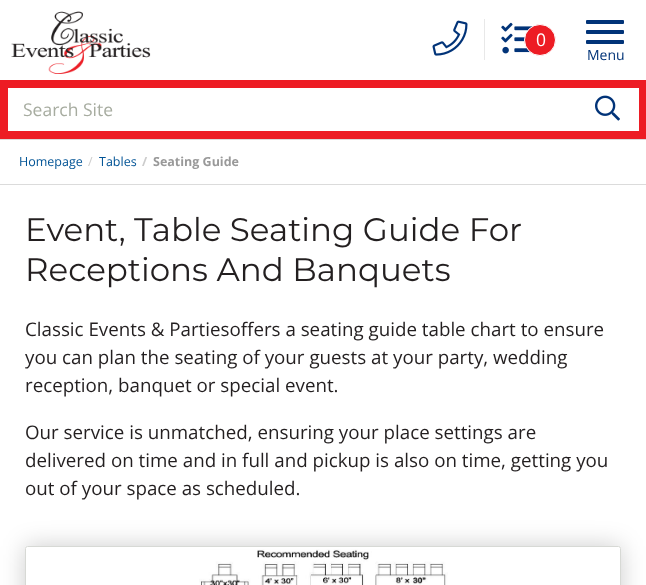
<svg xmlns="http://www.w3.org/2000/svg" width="646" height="585">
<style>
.a{font:17.5px Open Sans;fill:#fff}
.b{font:14px Open Sans;fill:#013378}
.c{font:17.5px Open Sans;fill:#a7aca0}
.d{font:12.5px Open Sans;fill:#005395}
.e{font:12.5px Open Sans;fill:#ccc}
.f{font:bold 12.5px Open Sans;fill:#ccc}
.g{font:bold 12.5px Open Sans;fill:#999}
.h{font:32.5px Montserrat;fill:#231f20}
.i{font:18.75px Open Sans;fill:#231f20}
</style>
<defs>
<clipPath id="clip1"><path d="M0 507h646v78h-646zm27.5 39h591c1.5 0 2.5 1 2.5 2.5v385c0 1.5-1 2.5-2.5 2.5h-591c-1.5 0-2.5-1-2.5-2.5v-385c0-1.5 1-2.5 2.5-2.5z" clip-rule="evenodd"/></clipPath>
</defs>
<rect width="100%" height="100%" fill="#fff"/>
<image href="1.png" x="11" y="11" width="140" height="63"/>
<path fill="#e8e8e8" d="M484 19h1v41H484z"/>
<image href="2.png" x="432" y="20" width="36" height="36"/>
<image href="3.png" x="501" y="22" width="32" height="32"/>
<circle fill="#ed1c24" stroke="#fff" cx="540" cy="40" r="15.5"/>
<rect fill="#013378" x="586" y="30" width="38" height="4" rx="1"/>
<rect fill="#013378" x="586" y="20" width="38" height="4" rx="1"/>
<rect fill="#013378" x="586" y="40" width="38" height="4" rx="1"/>
<path fill="#ed1c24" d="M0 80h646v59H0z"/>
<path fill="#fff" d="M8 88h631v43H8z"/>
<image href="4.png" x="595" y="95" width="25" height="26"/>
<path fill="#dbdbdb" d="M0 139h646v1H0z"/>
<path fill="#dbdbdb" d="M0 184h646v1H0z"/>
<g clip-path="url(#clip1)">
<rect fill="#00000033" filter="blur(12.5px)" x="25" y="546" width="596" height="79" rx="2.5"/>
</g>
<rect fill="none" stroke="#d7d9d5" x="25.5" y="546.5" width="595" height="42" rx="2"/>
<image href="5.png" x="199" y="549" width="249" height="36"/>
<text class="a" x="536" y="46">0</text>
<text class="b" x="587" y="60">Menu</text>
<text class="c" x="23" y="116">Search Site</text>
<text class="d" x="19" y="166">Homepage</text>
<text class="e" x="88" y="166">/</text>
<text class="d" x="99" y="166">Tables</text>
<text class="f" x="142" y="166">/</text>
<text class="g" x="153" y="166">Seating Guide</text>
<text class="h" x="25" y="241">Event, Table Seating Guide For</text>
<text class="h" x="25" y="281">Receptions And Banquets</text>
<text class="i" x="25" y="336">Classic Events &amp; Partiesoffers a seating guide table chart to ensure</text>
<text class="i" x="25" y="364">you can plan the seating of your guests at your party, wedding</text>
<text class="i" x="25" y="392">reception, banquet or special event.</text>
<text class="i" x="25" y="439">Our service is unmatched, ensuring your place settings are</text>
<text class="i" x="25" y="467">delivered on time and in full and pickup is also on time, getting you</text>
<text class="i" x="25" y="495">out of your space as scheduled.</text>
</svg>
